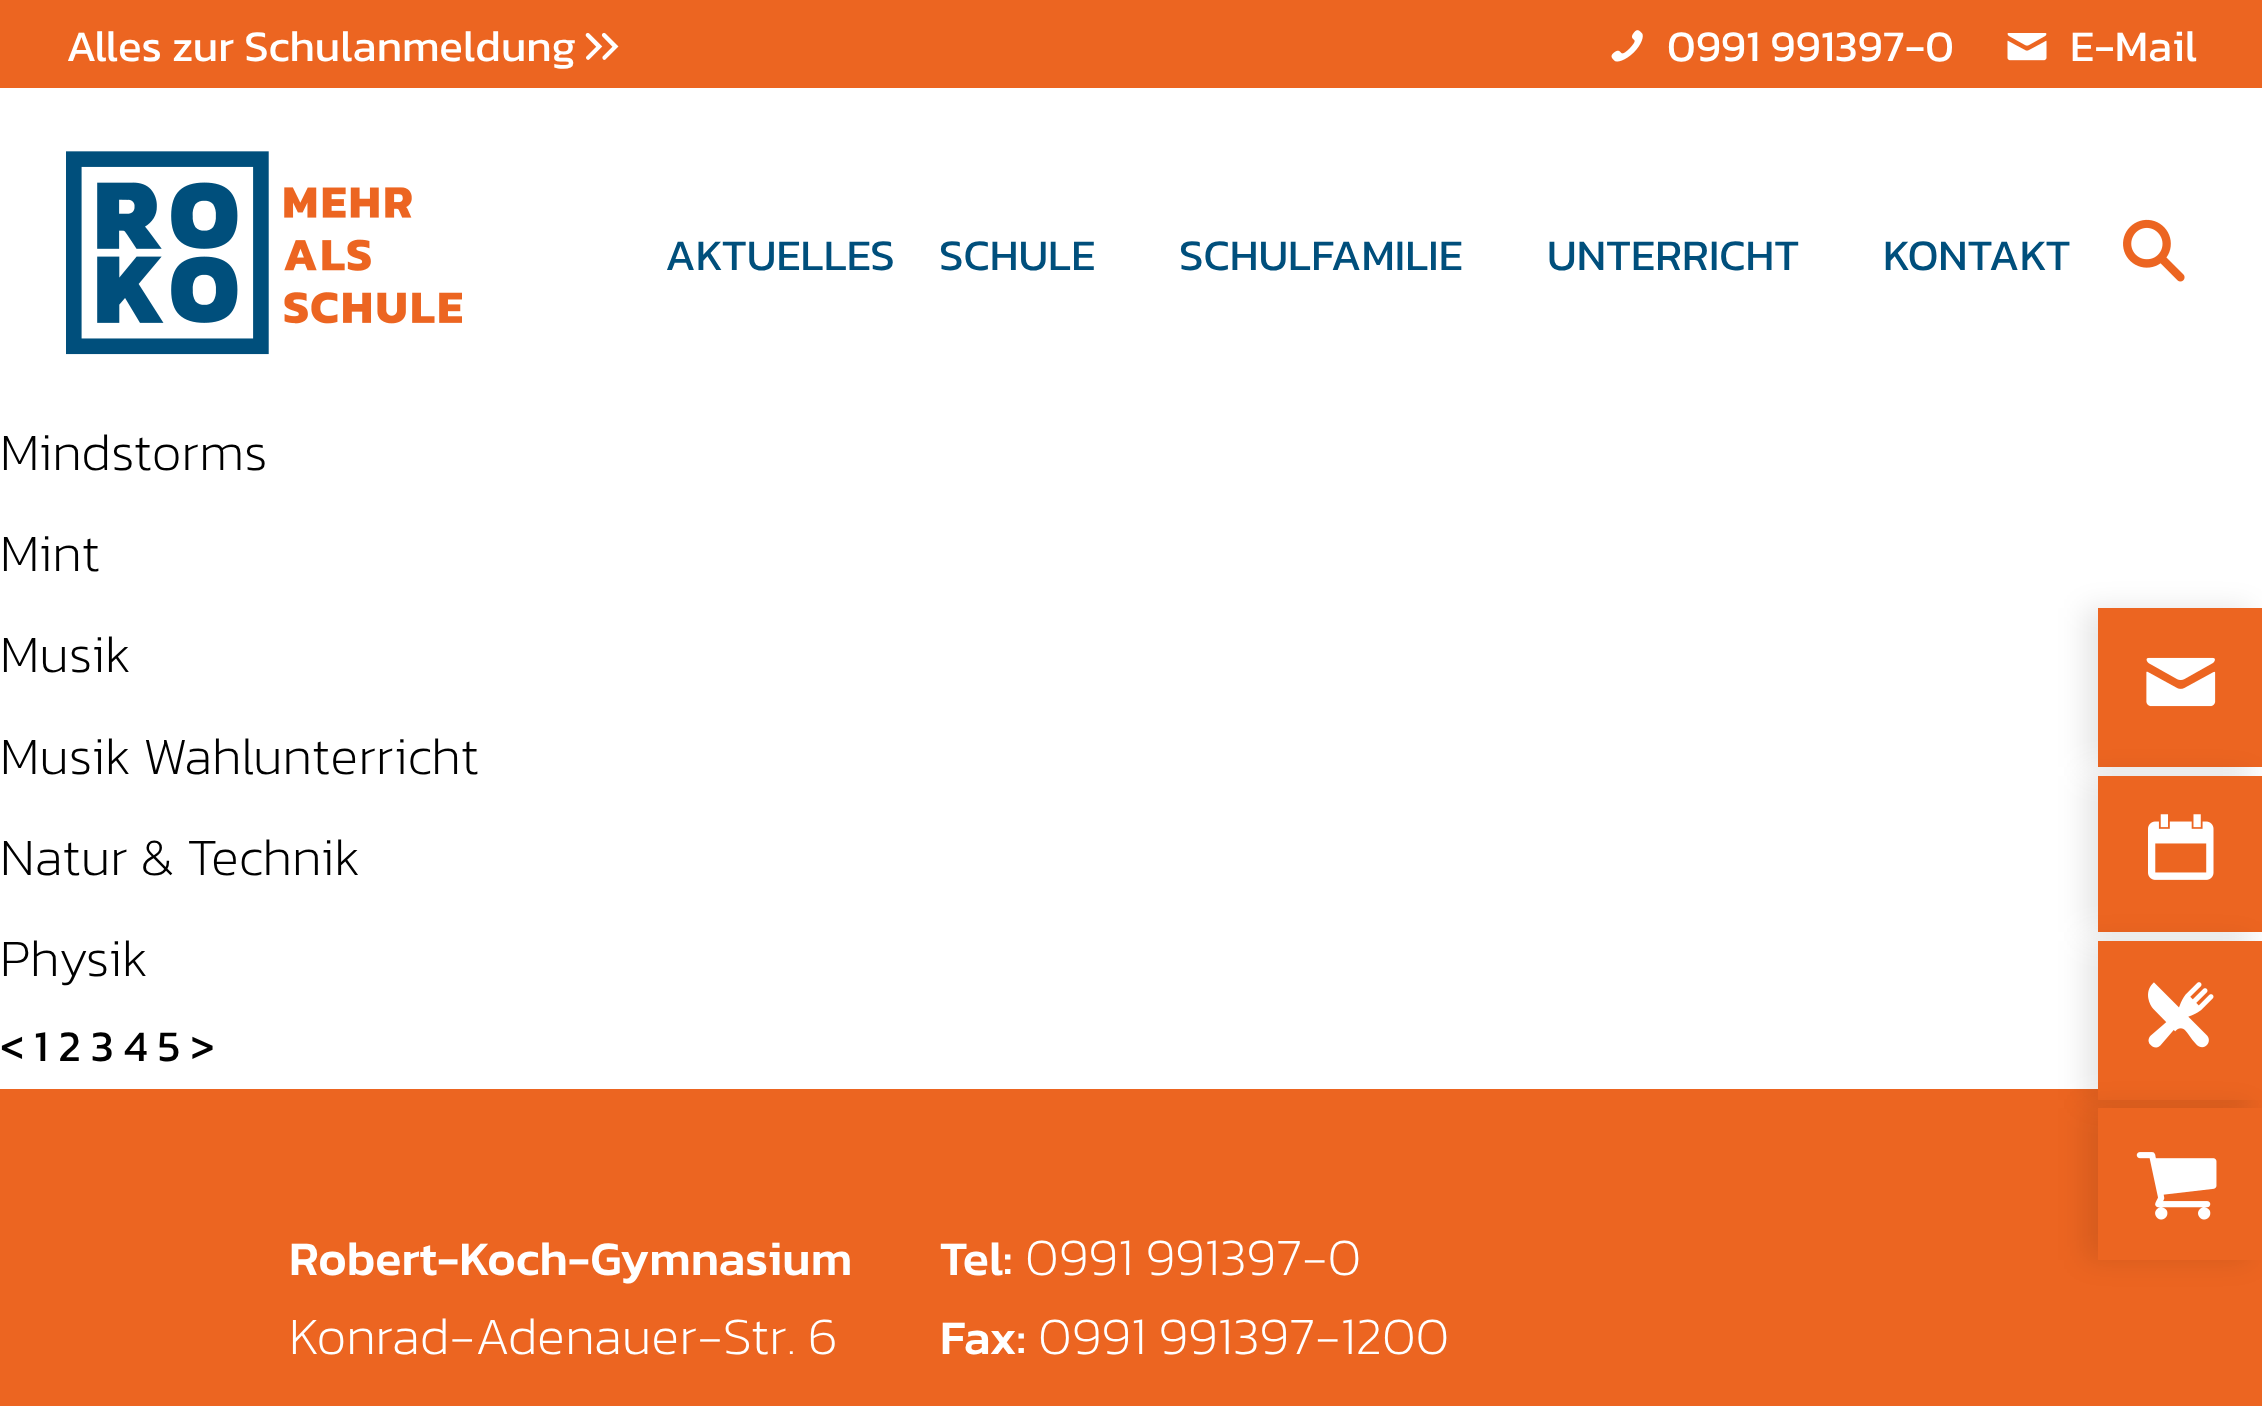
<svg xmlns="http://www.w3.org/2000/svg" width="2262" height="1406">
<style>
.a{font:44px Kanit;fill:#fff}
.b{font:44px Kanit;fill:#004f7c}
.c{font:200 52.75px Kanit;fill:#000}
.d{font:44px Kanit;fill:#000}
.e{font:500 48.4px Kanit;fill:#fff}
.f{font:200 52.75px Kanit;fill:#fff}
</style>
<rect width="100%" height="100%" fill="#fff"/>
<path fill="#ec6521" d="M0 0h2262v88H0z"/>
<image href="1.png" x="585" y="32" width="34" height="28"/>
<image href="2.png" x="1611" y="30" width="32" height="32"/>
<image href="3.png" x="2007" y="33" width="40" height="28"/>
<image href="4.png" x="66" y="151" width="396" height="204"/>
<image href="5.png" x="2123" y="219" width="62" height="63"/>
<path fill="#ec6521" d="M0 1089h2262v317H0z"/>
<path fill="#0000001a" filter="blur(14px)" d="M2085 608h165v159H2085z"/>
<path fill="#ec6521" d="M2098 608h164v159H2098z"/>
<image href="6.png" x="2146" y="657" width="70" height="50"/>
<path fill="#0000001a" filter="blur(14px)" d="M2085 776h165v156H2085z"/>
<path fill="#ec6521" d="M2098 776h164v156H2098z"/>
<image href="7.png" x="2148" y="814" width="66" height="66"/>
<path fill="#0000001a" filter="blur(14px)" d="M2085 941h165v159H2085z"/>
<path fill="#ec6521" d="M2098 941h164v159H2098z"/>
<image href="8.png" x="2148" y="982" width="66" height="66"/>
<path fill="#0000001a" filter="blur(14px)" d="M2085 1108h165v152H2085z"/>
<path fill="#ec6521" d="M2098 1108h164v152H2098z"/>
<image href="9.png" x="2136" y="1152" width="81" height="68"/>
<text class="a" x="66" y="61">Alles zur Schulanmeldung</text>
<text class="a" x="1667" y="61">0991 991397-0</text>
<text class="a" x="2070" y="61">E-Mail</text>
<text class="b" x="665" y="270">AKTUELLES</text>
<text class="b" x="939" y="270">SCHULE</text>
<text class="b" x="1179" y="270">SCHULFAMILIE</text>
<text class="b" x="1547" y="270">UNTERRICHT</text>
<text class="b" x="1883" y="270">KONTAKT</text>
<text class="c" x="0" y="470">Mindstorms</text>
<text class="c" x="0" y="571">Mint</text>
<text class="c" x="0" y="672">Musik</text>
<text class="c" x="0" y="774">Musik Wahlunterricht</text>
<text class="c" x="0" y="875">Natur &amp; Technik</text>
<text class="c" x="0" y="976">Physik</text>
<text class="d" x="0" y="1061">&lt; 1 2 3 4 5 &gt;</text>
<text class="e" x="289" y="1275">Robert-Koch-Gymnasium</text>
<text class="f" x="289" y="1354">Konrad-Adenauer-Str. 6</text>
<text class="e" x="940" y="1275">Tel:</text>
<text class="f" x="1025" y="1275">0991 991397-0</text>
<text class="e" x="940" y="1354">Fax:</text>
<text class="f" x="1038" y="1354">0991 991397-1200</text>
</svg>
